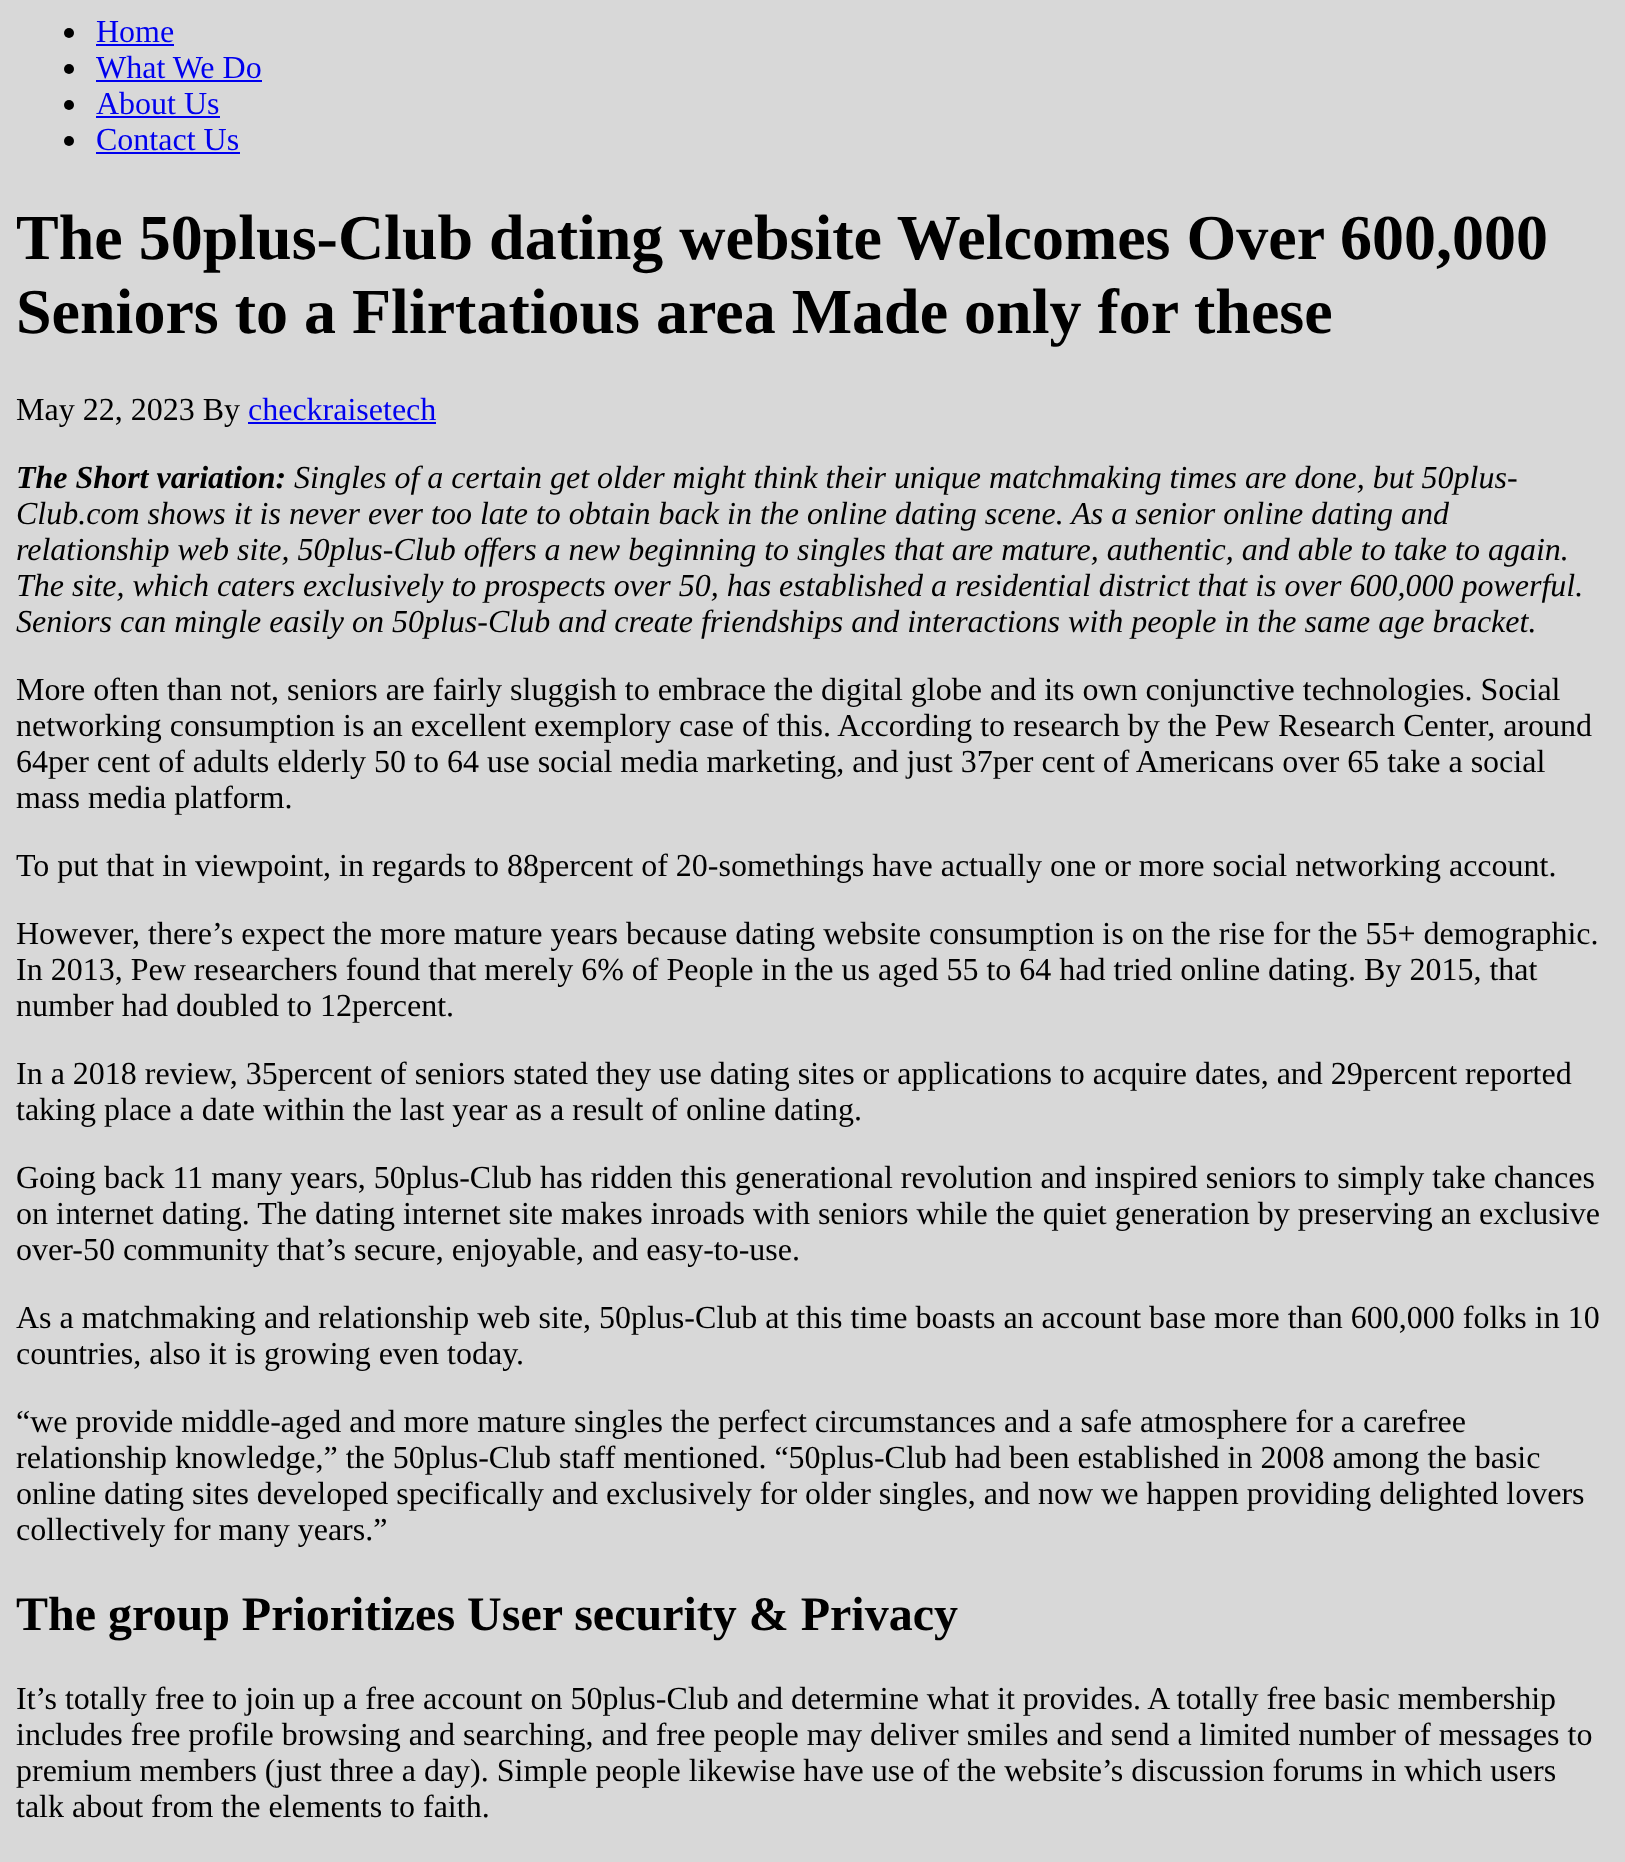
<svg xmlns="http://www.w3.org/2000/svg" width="1625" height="1862">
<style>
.a{font:32px Liberation Serif;fill:#00e}
.b{font:bold 64px Liberation Serif;fill:#000}
.c{font:32px Liberation Serif;fill:#000}
.d{font:italic bold 32px Liberation Serif;fill:#000}
.e{font:italic 32px Liberation Serif;fill:#000}
.f{font:bold 48px Liberation Serif;fill:#000}
</style>
<rect width="100%" height="100%" fill="#d8d8d8"/>
<circle fill="#000" cx="69" cy="33" r="5"/>
<path fill="#00e" d="M96 44h78v2H96z"/>
<circle fill="#000" cx="69" cy="69" r="5"/>
<path fill="#00e" d="M96 80h166v2H96z"/>
<circle fill="#000" cx="69" cy="105" r="5"/>
<path fill="#00e" d="M96 116h124v2H96z"/>
<circle fill="#000" cx="69" cy="141" r="5"/>
<path fill="#00e" d="M96 152h144v2H96z"/>
<path fill="#00e" d="M248 422h188v2H248z"/>
<text class="a" x="96" y="42">Home</text>
<text class="a" x="96" y="78">What We Do</text>
<text class="a" x="96" y="114">About Us</text>
<text class="a" x="96" y="150">Contact Us</text>
<text class="b" x="16" y="259">The 50plus-Club dating website Welcomes Over 600,000</text>
<text class="b" x="16" y="333">Seniors to a Flirtatious area Made only for these</text>
<text class="c" x="16" y="420">May 22, 2023 By</text>
<text class="a" x="248" y="420">checkraisetech</text>
<text class="d" x="16" y="488">The Short variation:</text>
<text class="e" x="294" y="488">Singles of a certain get older might think their unique matchmaking times are done, but 50plus-</text>
<text class="e" x="16" y="524">Club.com shows it is never ever too late to obtain back in the online dating scene. As a senior online dating and</text>
<text class="e" x="16" y="560">relationship web site, 50plus-Club offers a new beginning to singles that are mature, authentic, and able to take to again.</text>
<text class="e" x="16" y="596">The site, which caters exclusively to prospects over 50, has established a residential district that is over 600,000 powerful.</text>
<text class="e" x="16" y="632">Seniors can mingle easily on 50plus-Club and create friendships and interactions with people in the same age bracket.</text>
<text class="c" x="16" y="700">More often than not, seniors are fairly sluggish to embrace the digital globe and its own conjunctive technologies. Social</text>
<text class="c" x="16" y="736">networking consumption is an excellent exemplory case of this. According to research by the Pew Research Center, around</text>
<text class="c" x="16" y="772">64per cent of adults elderly 50 to 64 use social media marketing, and just 37per cent of Americans over 65 take a social</text>
<text class="c" x="16" y="808">mass media platform.</text>
<text class="c" x="16" y="876">To put that in viewpoint, in regards to 88percent of 20-somethings have actually one or more social networking account.</text>
<text class="c" x="16" y="944">However, there’s expect the more mature years because dating website consumption is on the rise for the 55+ demographic.</text>
<text class="c" x="16" y="980">In 2013, Pew researchers found that merely 6% of People in the us aged 55 to 64 had tried online dating. By 2015, that</text>
<text class="c" x="16" y="1016">number had doubled to 12percent.</text>
<text class="c" x="16" y="1084">In a 2018 review, 35percent of seniors stated they use dating sites or applications to acquire dates, and 29percent reported</text>
<text class="c" x="16" y="1120">taking place a date within the last year as a result of online dating.</text>
<text class="c" x="16" y="1188">Going back 11 many years, 50plus-Club has ridden this generational revolution and inspired seniors to simply take chances</text>
<text class="c" x="16" y="1224">on internet dating. The dating internet site makes inroads with seniors while the quiet generation by preserving an exclusive</text>
<text class="c" x="16" y="1260">over-50 community that’s secure, enjoyable, and easy-to-use.</text>
<text class="c" x="16" y="1328">As a matchmaking and relationship web site, 50plus-Club at this time boasts an account base more than 600,000 folks in 10</text>
<text class="c" x="16" y="1364">countries, also it is growing even today.</text>
<text class="c" x="16" y="1432">“we provide middle-aged and more mature singles the perfect circumstances and a safe atmosphere for a carefree</text>
<text class="c" x="16" y="1468">relationship knowledge,” the 50plus-Club staff mentioned. “50plus-Club had been established in 2008 among the basic</text>
<text class="c" x="16" y="1504">online dating sites developed specifically and exclusively for older singles, and now we happen providing delighted lovers</text>
<text class="c" x="16" y="1540">collectively for many years.”</text>
<text class="f" x="16" y="1630">The group Prioritizes User security &amp; Privacy</text>
<text class="c" x="16" y="1709">It’s totally free to join up a free account on 50plus-Club and determine what it provides. A totally free basic membership</text>
<text class="c" x="16" y="1745">includes free profile browsing and searching, and free people may deliver smiles and send a limited number of messages to</text>
<text class="c" x="16" y="1781">premium members (just three a day). Simple people likewise have use of the website’s discussion forums in which users</text>
<text class="c" x="16" y="1817">talk about from the elements to faith.</text>
</svg>
